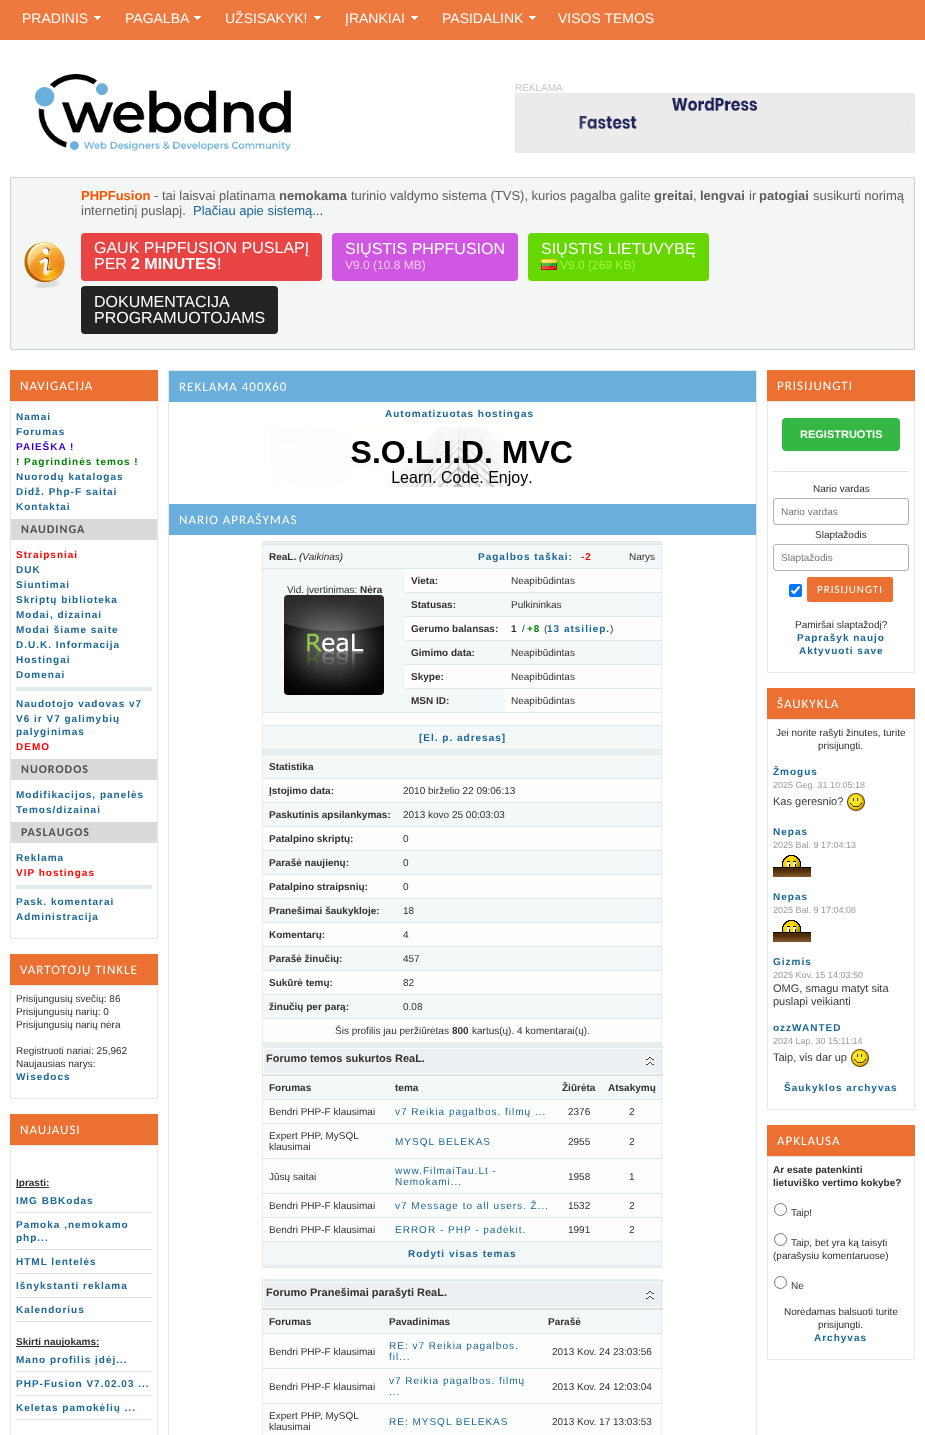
<svg xmlns="http://www.w3.org/2000/svg" width="925" height="1435">
<style>
.a{font:14px Liberation Sans;fill:#fff}
.b{font:10px Liberation Sans;fill:#c6c6c6}
.c{font:bold 13px Liberation Sans;fill:#fc5300}
.d{font:13px Liberation Sans;fill:#5c5c5c}
.e{font:bold 13px Liberation Sans;fill:#5c5c5c}
.f{font:13px Liberation Sans;fill:#1a6697}
.g{font:16px Liberation Sans;fill:#fff}
.h{font:bold 16px Liberation Sans;fill:#fff}
.i{font:12px Liberation Sans;fill:#ffc5fd}
.j{font:12px Liberation Sans;fill:#9aff40}
.k{font:13px Carlito;letter-spacing:1px;fill:#fff}
.l{font:bold 10px Liberation Sans;letter-spacing:1px;fill:#1a6697}
.m{font:bold 10px Liberation Sans;letter-spacing:1px;fill:#3500cc}
.n{font:bold 10px Liberation Sans;letter-spacing:1px;fill:#008000}
.o{font:bold 12px Carlito;letter-spacing:1px;fill:#515151}
.p{font:bold 10px Liberation Sans;letter-spacing:1px;fill:#f00}
.q{font:10px Liberation Sans;fill:#303030}
.r{font:bold 10px Liberation Sans;fill:#303030}
.s{font:italic 10px Liberation Sans;fill:#303030}
.t{font:bold 11px Liberation Sans;fill:#303030}
.u{font:10px Liberation Sans;letter-spacing:1px;fill:#1a6697}
.v{font:bold 11px Liberation Sans;fill:#fff}
.w{font:10px Liberation Sans;fill:#757575}
.x{font:11px Carlito;letter-spacing:1px;fill:#fff}
.y{font:9px Liberation Sans;fill:#9a9a9a}
.z{font:11px Liberation Sans;fill:#393939}
</style>
<rect width="100%" height="100%" fill="#fff"/>
<path fill="#ee793f" d="M0 0h925v40H0z"/>
<image href="1.png" x="94" y="16" width="7" height="4"/>
<image href="1.png" x="194" y="16" width="7" height="4"/>
<image href="1.png" x="314" y="16" width="7" height="4"/>
<image href="1.png" x="411" y="16" width="7" height="4"/>
<image href="1.png" x="529" y="16" width="7" height="4"/>
<image href="2.png" x="35" y="74" width="256" height="77"/>
<image href="3.png" x="515" y="93" width="400" height="60"/>
<rect fill="#f4f5f5" x="10" y="177" width="905" height="173" rx="2"/>
<image href="4.png" x="24" y="242" width="41" height="46"/>
<rect fill="none" stroke="#d0d0d0" x="10.5" y="177.5" width="904" height="172" rx="1.5"/>
<rect fill="#e94444" x="81" y="233" width="241" height="48" rx="4"/>
<rect fill="#cf57e1" x="332" y="233" width="186" height="48" rx="4"/>
<rect fill="#66d800" x="528" y="233" width="181" height="48" rx="4"/>
<image href="5.png" x="541" y="259" width="16" height="11"/>
<rect fill="#232323" x="81" y="286" width="197" height="48" rx="4"/>
<path fill="#ed7033" d="M10 370h148v31H10z"/>
<path fill="none" stroke="#e8e6e6" d="M10.5 401.5h147v537H10.5z"/>
<path fill="#dadada" d="M11 519h146v21H11z"/>
<path fill="#e1eced" d="M16 687h136v4H16z"/>
<path fill="#dadada" d="M11 759h146v21H11z"/>
<path fill="#dadada" d="M11 822h146v21H11z"/>
<path fill="#e1eced" d="M16 885h136v4H16z"/>
<path fill="#ed7033" d="M10 954h148v31H10z"/>
<path fill="none" stroke="#e8e6e6" d="M10.5 985.5h147v113H10.5z"/>
<path fill="#ed7033" d="M10 1114h148v31H10z"/>
<path fill="none" stroke="#e8e6e6" d="M10.5 1145.5h147v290H10.5z"/>
<path fill="#303030" d="M16 1187h33v1H16z"/>
<path fill="#dfdfdf" d="M16 1212h136v1H16z"/>
<path fill="#dfdfdf" d="M16 1249h136v1H16z"/>
<path fill="#dfdfdf" d="M16 1273h136v1H16z"/>
<path fill="#dfdfdf" d="M16 1297h136v1H16z"/>
<path fill="#dfdfdf" d="M16 1321h136v1H16z"/>
<path fill="#303030" d="M16 1346h83v1H16z"/>
<path fill="#dfdfdf" d="M16 1371h136v1H16z"/>
<path fill="#dfdfdf" d="M16 1395h136v1H16z"/>
<path fill="#dfdfdf" d="M16 1419h136v1H16z"/>
<path fill="none" stroke="#e8e6e6" d="M168.5 370.5h588v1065H168.5z"/>
<path fill="#6aafdb" d="M169 371h587v31H169z"/>
<image href="6.png" x="270" y="427" width="302" height="60"/>
<path fill="#6aafdb" d="M169 504h587v31H169z"/>
<path fill="#e6eeef" d="M661 541h1v504H661z"/>
<path fill="#e6eeef" d="M262 541h1v504H262z"/>
<path fill="#e6eeef" d="M262 541h400v3H262z"/>
<path fill="#e6eeef" d="M262 749h400v6H262z"/>
<path fill="#f5f8f8" d="M263 545h398v23H263z"/>
<path fill="#e0e7e8" d="M263 544h398v1H263z"/>
<path fill="#fcfefe" d="M405 569h256v23H405z"/>
<path fill="#e0e7e8" d="M262 568h400v1H262z"/>
<path fill="#f5f8f8" d="M263 569h142v143H263z"/>
<path fill="#f5f8f8" d="M405 593h256v23H405z"/>
<path fill="#e0e7e8" d="M405 592h257v1H405z"/>
<path fill="#fcfefe" d="M405 617h256v23H405z"/>
<path fill="#e0e7e8" d="M405 616h257v1H405z"/>
<path fill="#f5f8f8" d="M405 641h256v23H405z"/>
<path fill="#e0e7e8" d="M405 640h257v1H405z"/>
<path fill="#fcfefe" d="M405 665h256v23H405z"/>
<path fill="#e0e7e8" d="M405 664h257v1H405z"/>
<path fill="#f5f8f8" d="M405 689h100v23H405z"/>
<path fill="#fcfefe" d="M505 689h156v23H505z"/>
<path fill="#e0e7e8" d="M405 688h257v1H405z"/>
<path fill="#fcfefe" d="M263 713h398v12H263z"/>
<path fill="#e0e7e8" d="M262 712h400v1H262z"/>
<path fill="#f5f8f8" d="M263 726h398v23H263z"/>
<path fill="#e0e7e8" d="M262 725h400v1H262z"/>
<path fill="#e6eeef" d="M262 1042h400v3H262z"/>
<path fill="#f5f8f8" d="M263 755h398v23H263z"/>
<path fill="#fcfefe" d="M263 779h398v23H263z"/>
<path fill="#e0e7e8" d="M262 778h400v1H262z"/>
<path fill="#f5f8f8" d="M263 803h398v23H263z"/>
<path fill="#e0e7e8" d="M262 802h400v1H262z"/>
<path fill="#fcfefe" d="M263 827h398v23H263z"/>
<path fill="#e0e7e8" d="M262 826h400v1H262z"/>
<path fill="#f5f8f8" d="M263 851h398v23H263z"/>
<path fill="#e0e7e8" d="M262 850h400v1H262z"/>
<path fill="#fcfefe" d="M263 875h398v23H263z"/>
<path fill="#e0e7e8" d="M262 874h400v1H262z"/>
<path fill="#f5f8f8" d="M263 899h398v23H263z"/>
<path fill="#e0e7e8" d="M262 898h400v1H262z"/>
<path fill="#fcfefe" d="M263 923h398v23H263z"/>
<path fill="#e0e7e8" d="M262 922h400v1H262z"/>
<path fill="#f5f8f8" d="M263 947h398v23H263z"/>
<path fill="#e0e7e8" d="M262 946h400v1H262z"/>
<path fill="#fcfefe" d="M263 971h398v23H263z"/>
<path fill="#e0e7e8" d="M262 970h400v1H262z"/>
<path fill="#f5f8f8" d="M263 995h398v23H263z"/>
<path fill="#e0e7e8" d="M262 994h400v1H262z"/>
<path fill="#fcfefe" d="M263 1019h398v23H263z"/>
<path fill="#e0e7e8" d="M262 1018h400v1H262z"/>
<path fill="#e6eeef" d="M661 1076h1v192H661z"/>
<path fill="#e6eeef" d="M262 1076h1v192H262z"/>
<path fill="#dce3e4" d="M661 1046h1v30H661z"/>
<path fill="#dce3e4" d="M262 1046h1v30H262z"/>
<path fill="#e6eeef" d="M262 1045h400v3H262z"/>
<path fill="#e6eeef" d="M262 1265h400v3H262z"/>
<path fill="#ecf0f2" d="M264 1049h397v24H264z"/>
<path fill="#dce3e4" d="M662 1046h1v2H662z"/>
<path fill="#dce3e4" d="M262 1074h401v2H262z"/>
<image href="8.png" x="646" y="1055" width="8" height="10"/>
<path fill="#f5f8f8" d="M263 1076h398v23H263z"/>
<path fill="#fcfefe" d="M263 1100h398v23H263z"/>
<path fill="#e0e7e8" d="M262 1099h400v1H262z"/>
<path fill="#fcfefe" d="M263 1124h398v34H263z"/>
<path fill="#e0e7e8" d="M262 1123h400v1H262z"/>
<path fill="#fcfefe" d="M263 1159h398v34H263z"/>
<path fill="#e0e7e8" d="M262 1158h400v1H262z"/>
<path fill="#fcfefe" d="M263 1194h398v23H263z"/>
<path fill="#e0e7e8" d="M262 1193h400v1H262z"/>
<path fill="#fcfefe" d="M263 1218h398v23H263z"/>
<path fill="#e0e7e8" d="M262 1217h400v1H262z"/>
<path fill="#f5f8f8" d="M263 1242h398v23H263z"/>
<path fill="#e0e7e8" d="M262 1241h400v1H262z"/>
<path fill="#e6eeef" d="M661 1310h1v125H661z"/>
<path fill="#e6eeef" d="M262 1310h1v125H262z"/>
<path fill="#dce3e4" d="M661 1280h1v30H661z"/>
<path fill="#dce3e4" d="M262 1280h1v30H262z"/>
<path fill="#e6eeef" d="M262 1279h400v3H262z"/>
<path fill="#ecf0f2" d="M264 1283h397v24H264z"/>
<path fill="#dce3e4" d="M662 1280h1v2H662z"/>
<path fill="#dce3e4" d="M262 1308h401v2H262z"/>
<image href="8.png" x="646" y="1289" width="8" height="10"/>
<path fill="#f5f8f8" d="M263 1310h398v23H263z"/>
<path fill="#fcfefe" d="M263 1334h398v34H263z"/>
<path fill="#e0e7e8" d="M262 1333h400v1H262z"/>
<path fill="#fcfefe" d="M263 1369h398v34H263z"/>
<path fill="#e0e7e8" d="M262 1368h400v1H262z"/>
<path fill="#fcfefe" d="M263 1404h398v31H263z"/>
<path fill="#e0e7e8" d="M262 1403h400v1H262z"/>
<path fill="#ed7033" d="M767 370h148v31H767z"/>
<path fill="none" stroke="#e8e6e6" d="M767.5 401.5h147v271H767.5z"/>
<rect fill="#34b843" x="782" y="418" width="118" height="33" rx="4"/>
<path fill="#dae2e3" d="M773 471h136v1H773z"/>
<rect fill="none" stroke="#b1b1b1" x="773.5" y="498.5" width="135" height="26" rx="2.5"/>
<rect fill="none" stroke="#b1b1b1" x="773.5" y="544.5" width="135" height="26" rx="2.5"/>
<rect fill="#0075ff" x="789" y="584" width="13" height="13" rx="2"/>
<path fill="none" stroke="#fff" stroke-width="2.1" d="M791.5 590.5l2.5 2.5l5.5-6.5"/>
<rect fill="#ed7033" stroke="#fff" x="806.5" y="576.5" width="87" height="26" rx="2.5"/>
<path fill="#ed7033" d="M767 688h148v31H767z"/>
<path fill="none" stroke="#e8e6e6" d="M767.5 719.5h147v390H767.5z"/>
<image href="9.png" x="847" y="793" width="18" height="18"/>
<image href="10.png" x="773" y="855" width="38" height="22"/>
<image href="10.png" x="773" y="920" width="38" height="22"/>
<image href="9.png" x="851" y="1049" width="18" height="18"/>
<path fill="#ed7033" d="M767 1125h148v31H767z"/>
<path fill="none" stroke="#e8e6e6" d="M767.5 1156.5h147v203H767.5z"/>
<circle fill="none" stroke="#767676" cx="780.5" cy="1209.5" r="6"/>
<circle fill="none" stroke="#767676" cx="780.5" cy="1239.5" r="6"/>
<circle fill="none" stroke="#767676" cx="780.5" cy="1282.5" r="6"/>
<text class="a" x="22" y="23">PRADINIS</text>
<text class="a" x="125" y="23">PAGALBA</text>
<text class="a" x="225" y="23">UŽSISAKYK!</text>
<text class="a" x="345" y="23">ĮRANKIAI</text>
<text class="a" x="442" y="23">PASIDALINK</text>
<text class="a" x="558" y="23">VISOS TEMOS</text>
<text class="b" x="515" y="91">REKLAMA</text>
<text class="c" x="81" y="200">PHPFusion</text>
<text class="d" x="154" y="200">- tai laisvai platinama</text>
<text class="e" x="279" y="200">nemokama</text>
<text class="d" x="351" y="200">turinio valdymo sistema (TVS), kurios pagalba galite</text>
<text class="e" x="654" y="200">greitai</text>
<text class="d" x="693" y="200">,</text>
<text class="e" x="700" y="200">lengvai</text>
<text class="d" x="749" y="200">ir</text>
<text class="e" x="759" y="200">patogiai</text>
<text class="d" x="813" y="200">susikurti norimą</text>
<text class="d" x="81" y="215">internetinį puslapį.</text>
<text class="f" x="193" y="215">Plačiau apie sistemą...</text>
<text class="g" x="94" y="253">GAUK PHPFUSION PUSLAPĮ</text>
<text class="g" x="94" y="269">PER</text>
<text class="h" x="131" y="269">2 MINUTES</text>
<text class="g" x="217" y="269">!</text>
<text class="g" x="345" y="254">SIŲSTIS PHPFUSION</text>
<text class="i" x="345" y="269">V9.0 (10.8 MB)</text>
<text class="g" x="541" y="254">SIŲSTIS LIETUVYBĘ</text>
<text class="j" x="560" y="269">V9.0 (269 KB)</text>
<text class="g" x="94" y="307">DOKUMENTACIJA</text>
<text class="g" x="94" y="323">PROGRAMUOTOJAMS</text>
<text class="k" x="20" y="390">NAVIGACIJA</text>
<text class="l" x="16" y="420">Namai</text>
<text class="l" x="16" y="435">Forumas</text>
<text class="m" x="16" y="450">PAIEŠKA !</text>
<text class="n" x="16" y="465">! Pagrindinės temos !</text>
<text class="l" x="16" y="480">Nuorodų katalogas</text>
<text class="l" x="16" y="495">Didž. Php-F saitai</text>
<text class="l" x="16" y="510">Kontaktai</text>
<text class="o" x="21" y="533">NAUDINGA</text>
<text class="p" x="16" y="558">Straipsniai</text>
<text class="l" x="16" y="573">DUK</text>
<text class="l" x="16" y="588">Siuntimai</text>
<text class="l" x="16" y="603">Skriptų biblioteka</text>
<text class="l" x="16" y="618">Modai, dizainai</text>
<text class="l" x="16" y="633">Modai šiame saite</text>
<text class="l" x="16" y="648">D.U.K. Informacija</text>
<text class="l" x="16" y="663">Hostingai</text>
<text class="l" x="16" y="678">Domenai</text>
<text class="l" x="16" y="707">Naudotojo vadovas v7</text>
<text class="l" x="16" y="722">V6 ir V7 galimybių</text>
<text class="l" x="16" y="735">palyginimas</text>
<text class="p" x="16" y="750">DEMO</text>
<text class="o" x="21" y="773">NUORODOS</text>
<text class="l" x="16" y="798">Modifikacijos, panelės</text>
<text class="l" x="16" y="813">Temos/dizainai</text>
<text class="o" x="21" y="836">PASLAUGOS</text>
<text class="l" x="16" y="861">Reklama</text>
<text class="p" x="16" y="876">VIP hostingas</text>
<text class="l" x="16" y="905">Pask. komentarai</text>
<text class="l" x="16" y="920">Administracija</text>
<text class="k" x="20" y="974">VARTOTOJŲ TINKLE</text>
<text class="q" x="16" y="1002">Prisijungusių svečių: 86</text>
<text class="q" x="16" y="1015">Prisijungusių narių: 0</text>
<text class="q" x="16" y="1028">Prisijungusių narių nėra</text>
<text class="q" x="16" y="1054">Registruoti nariai: 25,962</text>
<text class="q" x="16" y="1067">Naujausias narys:</text>
<text class="l" x="16" y="1080">Wisedocs</text>
<text class="k" x="20" y="1134">NAUJAUSI</text>
<text class="r" x="16" y="1186">Įprasti:</text>
<text class="l" x="16" y="1204">IMG BBKodas</text>
<text class="l" x="16" y="1228">Pamoka ,nemokamo</text>
<text class="l" x="16" y="1241">php...</text>
<text class="l" x="16" y="1265">HTML lentelės</text>
<text class="l" x="16" y="1289">Išnykstanti reklama</text>
<text class="l" x="16" y="1313">Kalendorius</text>
<text class="r" x="16" y="1345">Skirti naujokams:</text>
<text class="l" x="16" y="1363">Mano profilis įdėj...</text>
<text class="l" x="16" y="1387">PHP-Fusion V7.02.03 ...</text>
<text class="l" x="16" y="1411">Keletas pamokėlių ...</text>
<text class="k" x="179" y="391">REKLAMA 400X60</text>
<text class="l" x="385" y="417">Automatizuotas hostingas</text>
<text class="k" x="179" y="524">NARIO APRAŠYMAS</text>
<text class="r" x="269" y="560">ReaL.</text>
<text class="s" x="299" y="560">(Vaikinas)</text>
<text class="l" x="478" y="560">Pagalbos taškai:</text>
<text class="p" x="581" y="560">-2</text>
<text class="q" x="629" y="560">Narys</text>
<text class="r" x="411" y="584">Vieta:</text>
<text class="q" x="511" y="584">Neapibūdintas</text>
<text class="q" x="287" y="593">Vid. įvertinimas:</text>
<text class="r" x="360" y="593">Nėra</text>
<image href="7.png" x="284" y="595" width="100" height="100"/>
<text class="r" x="411" y="608">Statusas:</text>
<text class="q" x="511" y="608">Pulkininkas</text>
<text class="r" x="411" y="632">Gerumo balansas:</text>
<text class="r" x="511" y="632">1</text>
<text class="q" x="522" y="632">/</text>
<text class="n" x="527" y="632">+8</text>
<text class="q" x="544" y="632">(</text>
<text class="l" x="547" y="632">13 atsiliep.</text>
<text class="q" x="610" y="632">)</text>
<text class="r" x="411" y="656">Gimimo data:</text>
<text class="q" x="511" y="656">Neapibūdintas</text>
<text class="r" x="411" y="680">Skype:</text>
<text class="q" x="511" y="680">Neapibūdintas</text>
<text class="r" x="411" y="704">MSN ID:</text>
<text class="q" x="511" y="704">Neapibūdintas</text>
<text class="l" x="419" y="741">[El. p. adresas]</text>
<text class="r" x="269" y="770">Statistika</text>
<text class="r" x="269" y="794">Įstojimo data:</text>
<text class="q" x="403" y="794">2010 birželio 22 09:06:13</text>
<text class="r" x="269" y="818">Paskutinis apsilankymas:</text>
<text class="q" x="403" y="818">2013 kovo 25 00:03:03</text>
<text class="r" x="269" y="842">Patalpino skriptų:</text>
<text class="q" x="403" y="842">0</text>
<text class="r" x="269" y="866">Parašė naujienų:</text>
<text class="q" x="403" y="866">0</text>
<text class="r" x="269" y="890">Patalpino straipsnių:</text>
<text class="q" x="403" y="890">0</text>
<text class="r" x="269" y="914">Pranešimai šaukykloje:</text>
<text class="q" x="403" y="914">18</text>
<text class="r" x="269" y="938">Komentarų:</text>
<text class="q" x="403" y="938">4</text>
<text class="r" x="269" y="962">Parašė žinučių:</text>
<text class="q" x="403" y="962">457</text>
<text class="r" x="269" y="986">Sukūrė temų:</text>
<text class="q" x="403" y="986">82</text>
<text class="r" x="269" y="1010">žinučių per parą:</text>
<text class="q" x="403" y="1010">0.08</text>
<text class="q" x="335" y="1034">Šis profilis jau peržiūrėtas</text>
<text class="r" x="452" y="1034">800</text>
<text class="q" x="472" y="1034">kartus(ų). 4 komentarai(ų).</text>
<text class="t" x="266" y="1062">Forumo temos sukurtos ReaL.</text>
<text class="r" x="269" y="1091">Forumas</text>
<text class="r" x="395" y="1091">tema</text>
<text class="r" x="562" y="1091">Žiūrėta</text>
<text class="r" x="608" y="1091">Atsakymų</text>
<text class="q" x="269" y="1115">Bendri PHP-F klausimai</text>
<text class="u" x="395" y="1115">v7 Reikia pagalbos. filmų ...</text>
<text class="q" x="568" y="1115">2376</text>
<text class="q" x="629" y="1115">2</text>
<text class="q" x="269" y="1139">Expert PHP, MySQL</text>
<text class="q" x="269" y="1150">klausimai</text>
<text class="u" x="395" y="1145">MYSQL BELEKAS</text>
<text class="q" x="568" y="1145">2955</text>
<text class="q" x="629" y="1145">2</text>
<text class="q" x="269" y="1180">Jūsų saitai</text>
<text class="u" x="395" y="1174">www.FilmaiTau.Lt -</text>
<text class="u" x="395" y="1185">Nemokami...</text>
<text class="q" x="568" y="1180">1958</text>
<text class="q" x="629" y="1180">1</text>
<text class="q" x="269" y="1209">Bendri PHP-F klausimai</text>
<text class="u" x="395" y="1209">v7 Message to all users. Ž...</text>
<text class="q" x="568" y="1209">1532</text>
<text class="q" x="629" y="1209">2</text>
<text class="q" x="269" y="1233">Bendri PHP-F klausimai</text>
<text class="u" x="395" y="1233">ERROR - PHP - padėkit.</text>
<text class="q" x="568" y="1233">1991</text>
<text class="q" x="629" y="1233">2</text>
<text class="l" x="408" y="1257">Rodyti visas temas</text>
<text class="t" x="266" y="1296">Forumo Pranešimai parašyti ReaL.</text>
<text class="r" x="269" y="1325">Forumas</text>
<text class="r" x="389" y="1325">Pavadinimas</text>
<text class="r" x="548" y="1325">Parašė</text>
<text class="q" x="269" y="1355">Bendri PHP-F klausimai</text>
<text class="u" x="389" y="1349">RE: v7 Reikia pagalbos.</text>
<text class="u" x="389" y="1360">fil...</text>
<text class="q" x="552" y="1355">2013 Kov. 24 23:03:56</text>
<text class="q" x="269" y="1390">Bendri PHP-F klausimai</text>
<text class="u" x="389" y="1384">v7 Reikia pagalbos. filmų</text>
<text class="u" x="389" y="1395">...</text>
<text class="q" x="552" y="1390">2013 Kov. 24 12:03:04</text>
<text class="q" x="269" y="1419">Expert PHP, MySQL</text>
<text class="q" x="269" y="1430">klausimai</text>
<text class="u" x="389" y="1425">RE: MYSQL BELEKAS</text>
<text class="q" x="552" y="1425">2013 Kov. 17 13:03:53</text>
<text class="k" x="777" y="390">PRISIJUNGTI</text>
<text class="v" x="800" y="438">REGISTRUOTIS</text>
<text class="q" x="813" y="492">Nario vardas</text>
<text class="w" x="781" y="515">Nario vardas</text>
<text class="q" x="815" y="538">Slaptažodis</text>
<text class="w" x="781" y="561">Slaptažodis</text>
<text class="x" x="817" y="593">PRISIJUNGTI</text>
<text class="q" x="795" y="628">Pamiršai slaptažodį?</text>
<text class="l" x="797" y="641">Paprašyk naujo</text>
<text class="l" x="799" y="654">Aktyvuoti save</text>
<text class="k" x="777" y="708">ŠAUKYKLA</text>
<text class="q" x="776" y="736">Jei norite rašyti žinutes, turite</text>
<text class="q" x="818" y="749">prisijungti.</text>
<text class="l" x="773" y="775">Žmogus</text>
<text class="y" x="773" y="788">2025 Geg. 31 10:05:18</text>
<text class="z" x="773" y="805">Kas geresnio?</text>
<text class="l" x="773" y="835">Nepas</text>
<text class="y" x="773" y="848">2025 Bal. 9 17:04:13</text>
<text class="l" x="773" y="900">Nepas</text>
<text class="y" x="773" y="913">2025 Bal. 9 17:04:08</text>
<text class="l" x="773" y="965">Gizmis</text>
<text class="y" x="773" y="978">2025 Kov. 15 14:03:50</text>
<text class="z" x="773" y="992">OMG, smagu matyt sita</text>
<text class="z" x="773" y="1005">puslapi veikianti</text>
<text class="l" x="773" y="1031">ozzWANTED</text>
<text class="y" x="773" y="1044">2024 Lap. 30 15:11:14</text>
<text class="z" x="773" y="1061">Taip, vis dar up</text>
<text class="l" x="784" y="1091">Šaukyklos archyvas</text>
<text class="k" x="777" y="1145">APKLAUSA</text>
<text class="r" x="773" y="1173">Ar esate patenkinti</text>
<text class="r" x="773" y="1186">lietuviško vertimo kokybe?</text>
<text class="q" x="791" y="1216">Taip!</text>
<text class="q" x="791" y="1246">Taip, bet yra ką taisyti</text>
<text class="q" x="773" y="1259">(parašysiu komentaruose)</text>
<text class="q" x="791" y="1289">Ne</text>
<text class="q" x="784" y="1315">Norėdamas balsuoti turite</text>
<text class="q" x="818" y="1328">prisijungti.</text>
<text class="l" x="814" y="1341">Archyvas</text>
</svg>
